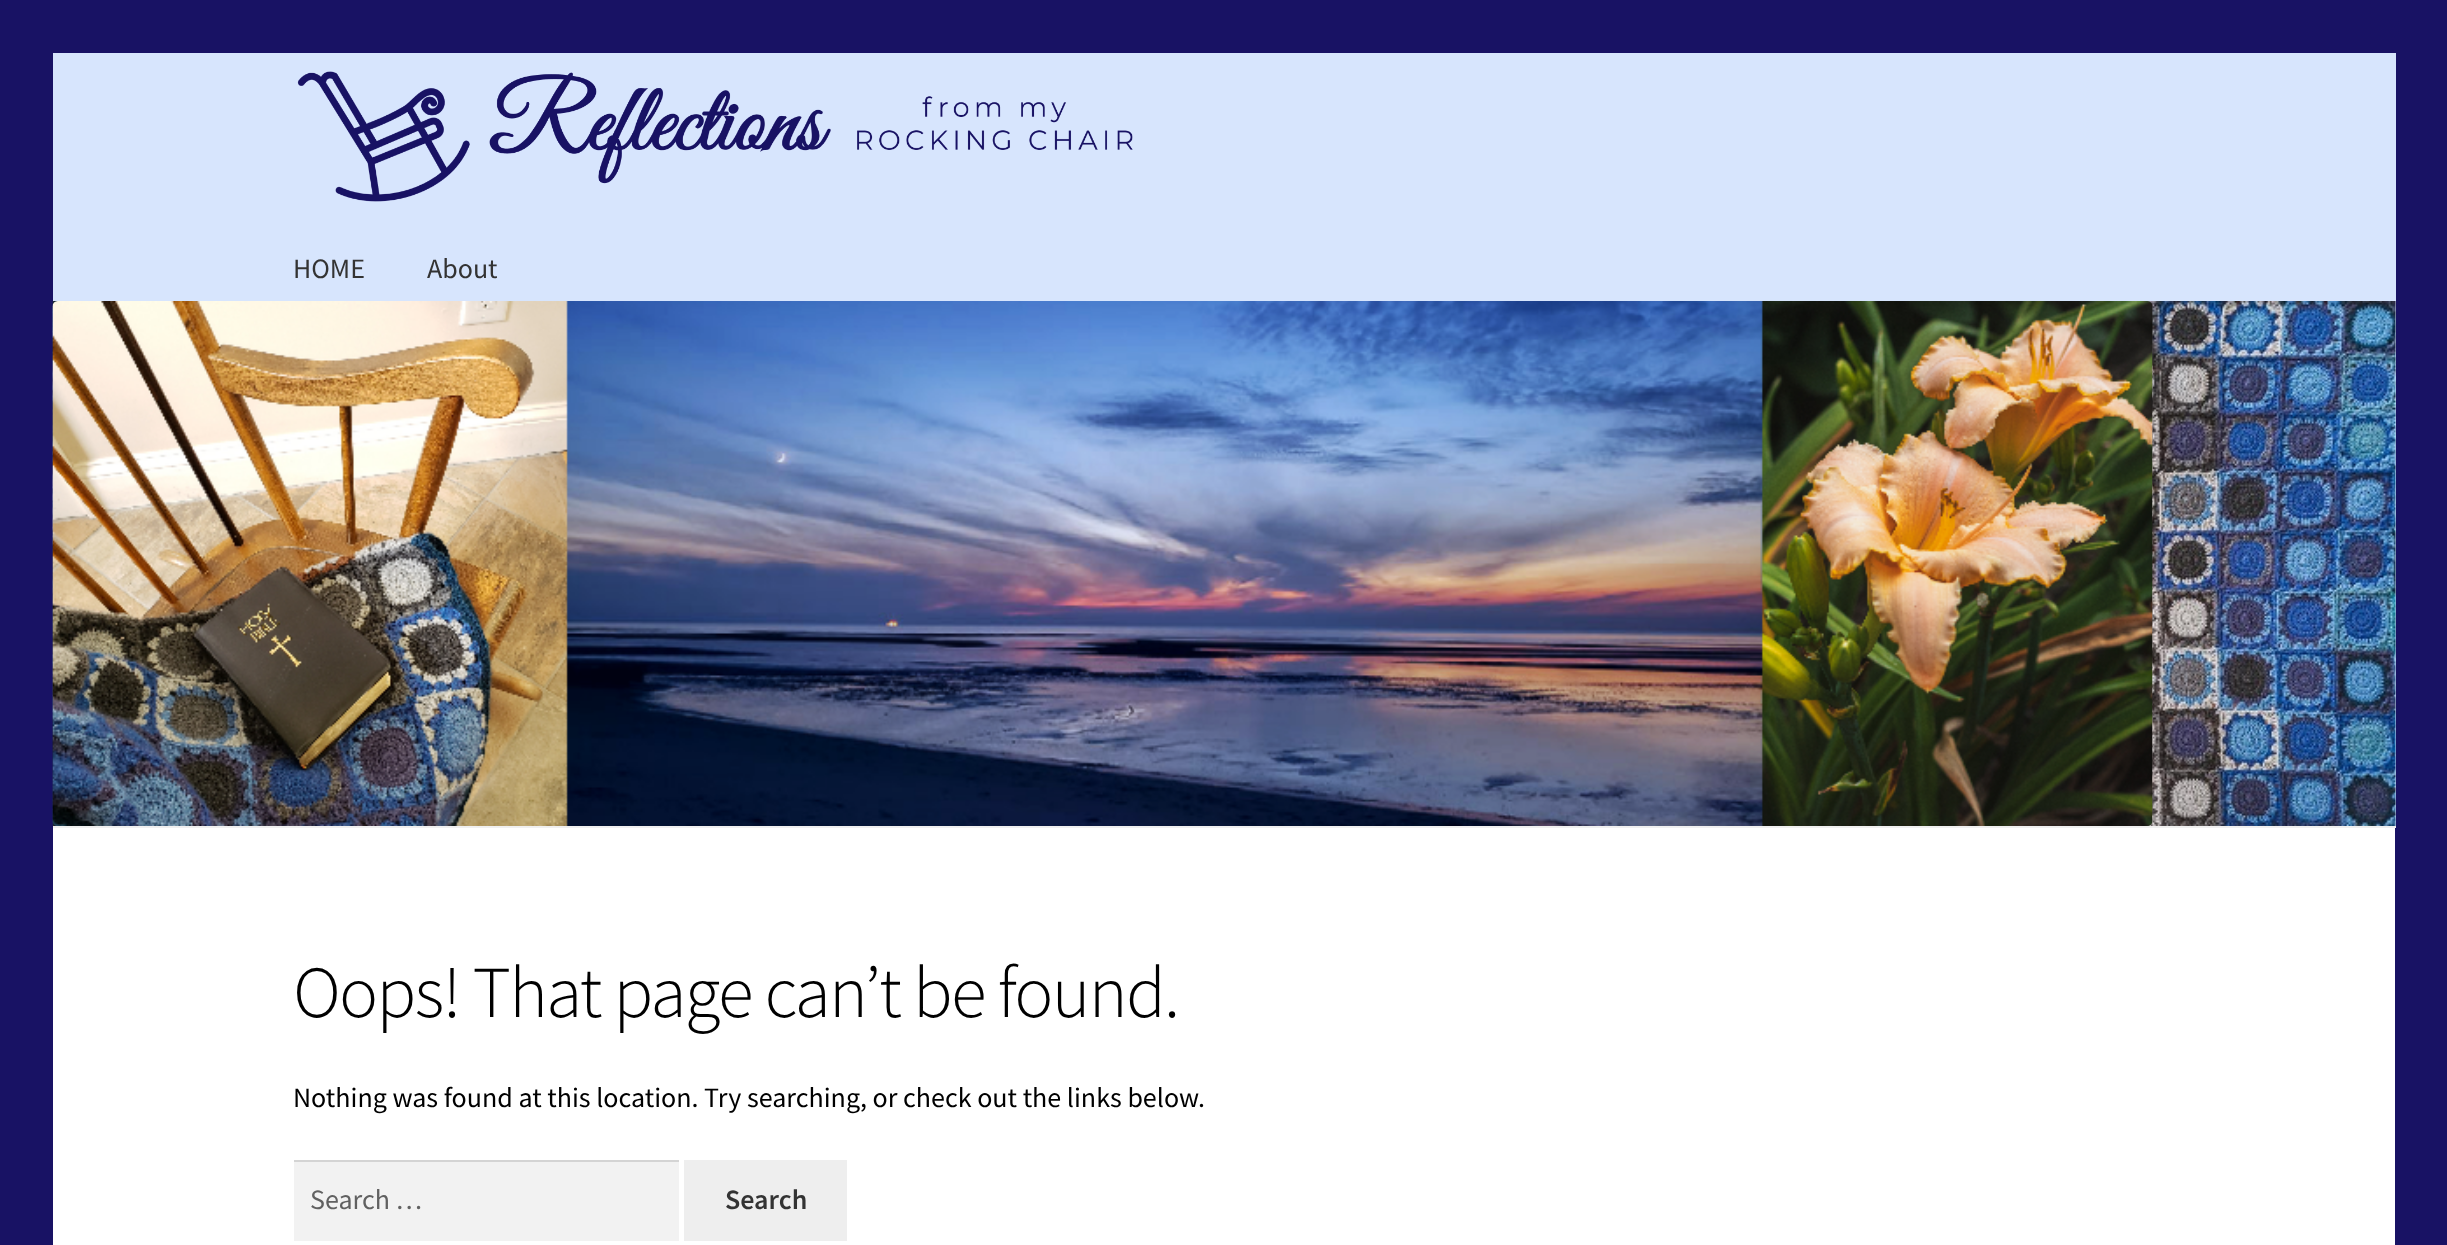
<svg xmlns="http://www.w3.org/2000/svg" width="2447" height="1245">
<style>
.a{font:28px Source Sans Pro;fill:#333}
.b{font:300 73.25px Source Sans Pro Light;letter-spacing:-1.75px;fill:#000}
.c{font:28px Source Sans Pro;fill:#000}
.d{font:28px Source Sans Pro;fill:#616161}
.e{font:600 28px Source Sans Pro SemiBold;fill:#333}
</style>
<rect width="100%" height="100%" fill="#fff"/>
<path fill="none" stroke="#181264" stroke-width="53" d="M26.5 26.5h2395v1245H26.5z"/>
<path fill="#d7e5fd" d="M53 53h2343v773H53z"/>
<path fill="#f0f0f0" d="M53 826h2343v2H53z"/>
<image href="1.png" x="297" y="71" width="836" height="131"/>
<image href="2.png" x="52" y="301" width="2344" height="525"/>
<image href="3.png" x="52" y="301" width="2101" height="525"/>
<path fill="#f2f2f2" d="M294 1162h385v79H294z"/>
<path fill="#d4d4d4" d="M294 1160h385v2H294z"/>
<path fill="#eee" d="M684 1160h163v81H684z"/>
<text class="a" x="293" y="278">HOME</text>
<text class="a" x="427" y="278">About</text>
<text class="b" x="293" y="1017">Oops! That page can’t be found.</text>
<text class="c" x="293" y="1107">Nothing was found at this location. Try searching, or check out the links below.</text>
<text class="d" x="310" y="1209">Search …</text>
<text class="e" x="725" y="1209">Search</text>
</svg>
